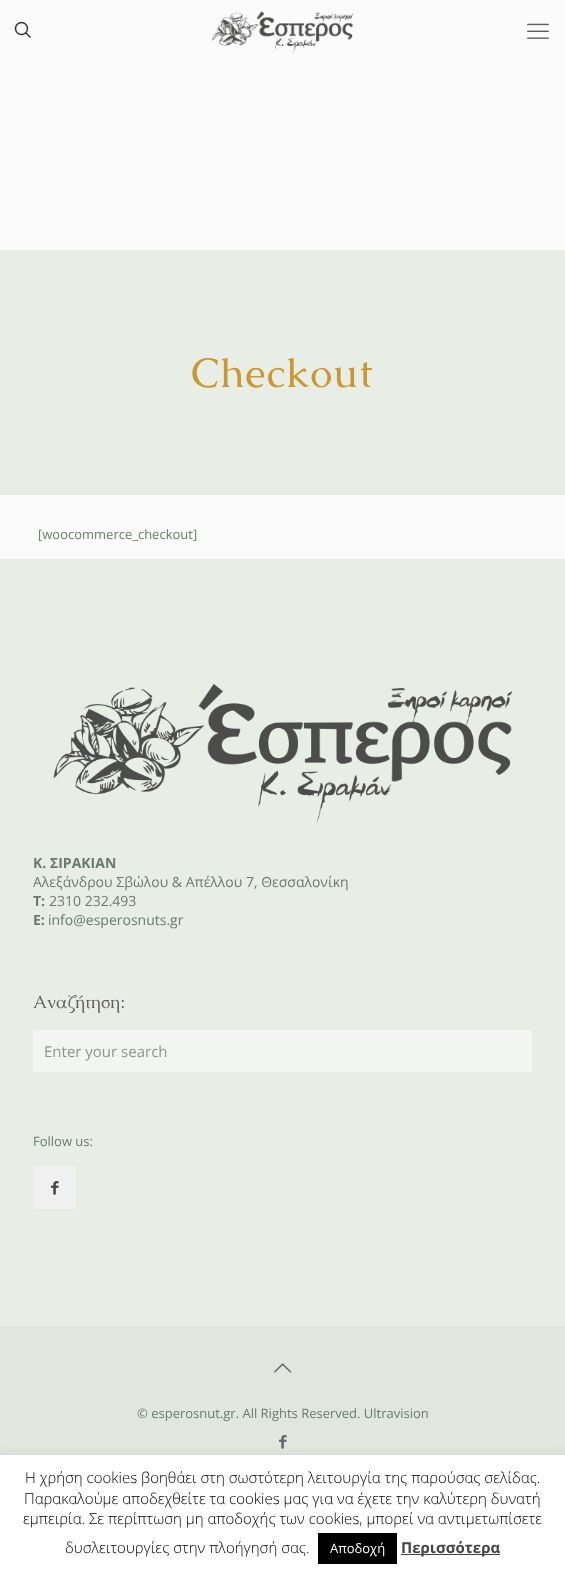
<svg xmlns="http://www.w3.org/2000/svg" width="565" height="1576">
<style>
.a{font:41px Caudex;letter-spacing:1px;fill:#cb9734}
.b{font:13px Open Sans;fill:#6b7a6b}
.c{font:bold 14px Open Sans;fill:#6b7a6b}
.d{font:14px Open Sans;fill:#6b7a6b}
.e{font:18px Caudex;fill:#605f5f}
.f{font:15px Open Sans;fill:#929292}
.g{font:300 15px Open Sans;fill:#000}
.h{font:13px Open Sans;fill:#fff}
.i{font:bold 15px Open Sans;fill:#444}
</style>
<rect width="100%" height="100%" fill="#fafbfa"/>
<circle fill="none" stroke="#333" stroke-width="1.5" cx="21.5" cy="28.5" r="6"/>
<path fill="none" stroke="#333" stroke-width="1.5" d="M25.5 32.5l5 5"/>
<image href="1.png" x="212" y="11" width="141" height="43"/>
<image href="2.png" x="527" y="23" width="22" height="16"/>
<path fill="#e8ede6" d="M0 250h565v245H0z"/>
<path fill="#e8ede6" d="M0 559h565v767H0z"/>
<image href="3.png" x="53" y="684" width="459" height="139"/>
<path fill="#f3f5f2" d="M33 1030h499v42H33z"/>
<path fill="#f0f0f0" d="M33 1166h43v43H33z"/>
<image href="4.png" x="51" y="1181" width="8" height="14"/>
<path fill="#e1e7de" d="M0 1327h565v128H0z"/>
<path fill="#e4e9e1" d="M0 1326h565v1H0z"/>
<image href="5.png" x="274" y="1363" width="18" height="10"/>
<image href="6.png" x="279" y="1435" width="8" height="14"/>
<path fill="#acabab4d" filter="blur(5px)" d="M0 1454h565v121H0z"/>
<path fill="#fff" d="M0 1455h565v121H0z"/>
<path fill="#000" d="M318 1533h79v31H318z"/>
<path fill="#444" d="M401 1554h99v1H401z"/>
<text class="a" x="191" y="387">Checkout</text>
<text class="b" x="38" y="539">[woocommerce_checkout]</text>
<text class="c" x="33" y="868">Κ. ΣΙΡΑΚΙΑΝ</text>
<text class="d" x="33" y="887">Αλεξάνδρου Σβώλου &amp; Απέλλου 7, Θεσσαλονίκη</text>
<text class="c" x="33" y="906">Τ:</text>
<text class="d" x="49" y="906">2310 232.493</text>
<text class="c" x="33" y="925">E:</text>
<text class="d" x="48" y="925">info@esperosnuts.gr</text>
<text class="e" x="33" y="1008">Αναζήτηση:</text>
<text class="f" x="44" y="1057">Enter your search</text>
<text class="b" x="33" y="1146">Follow us:</text>
<text class="b" x="137" y="1418">© esperosnut.gr. All Rights Reserved. Ultravision</text>
<text class="g" x="25" y="1483">Η χρήση cookies βοηθάει στη σωστότερη λειτουργία της παρούσας σελίδας.</text>
<text class="g" x="24" y="1504">Παρακαλούμε αποδεχθείτε τα cookies μας για να έχετε την καλύτερη δυνατή</text>
<text class="g" x="23" y="1524">εμπειρία. Σε περίπτωση μη αποδοχής των cookies, μπορεί να αντιμετωπίσετε</text>
<text class="g" x="65" y="1553">δυσλειτουργίες στην πλοήγησή σας.</text>
<text class="h" x="330" y="1553">Αποδοχή</text>
<text class="i" x="401" y="1553">Περισσότερα</text>
</svg>
